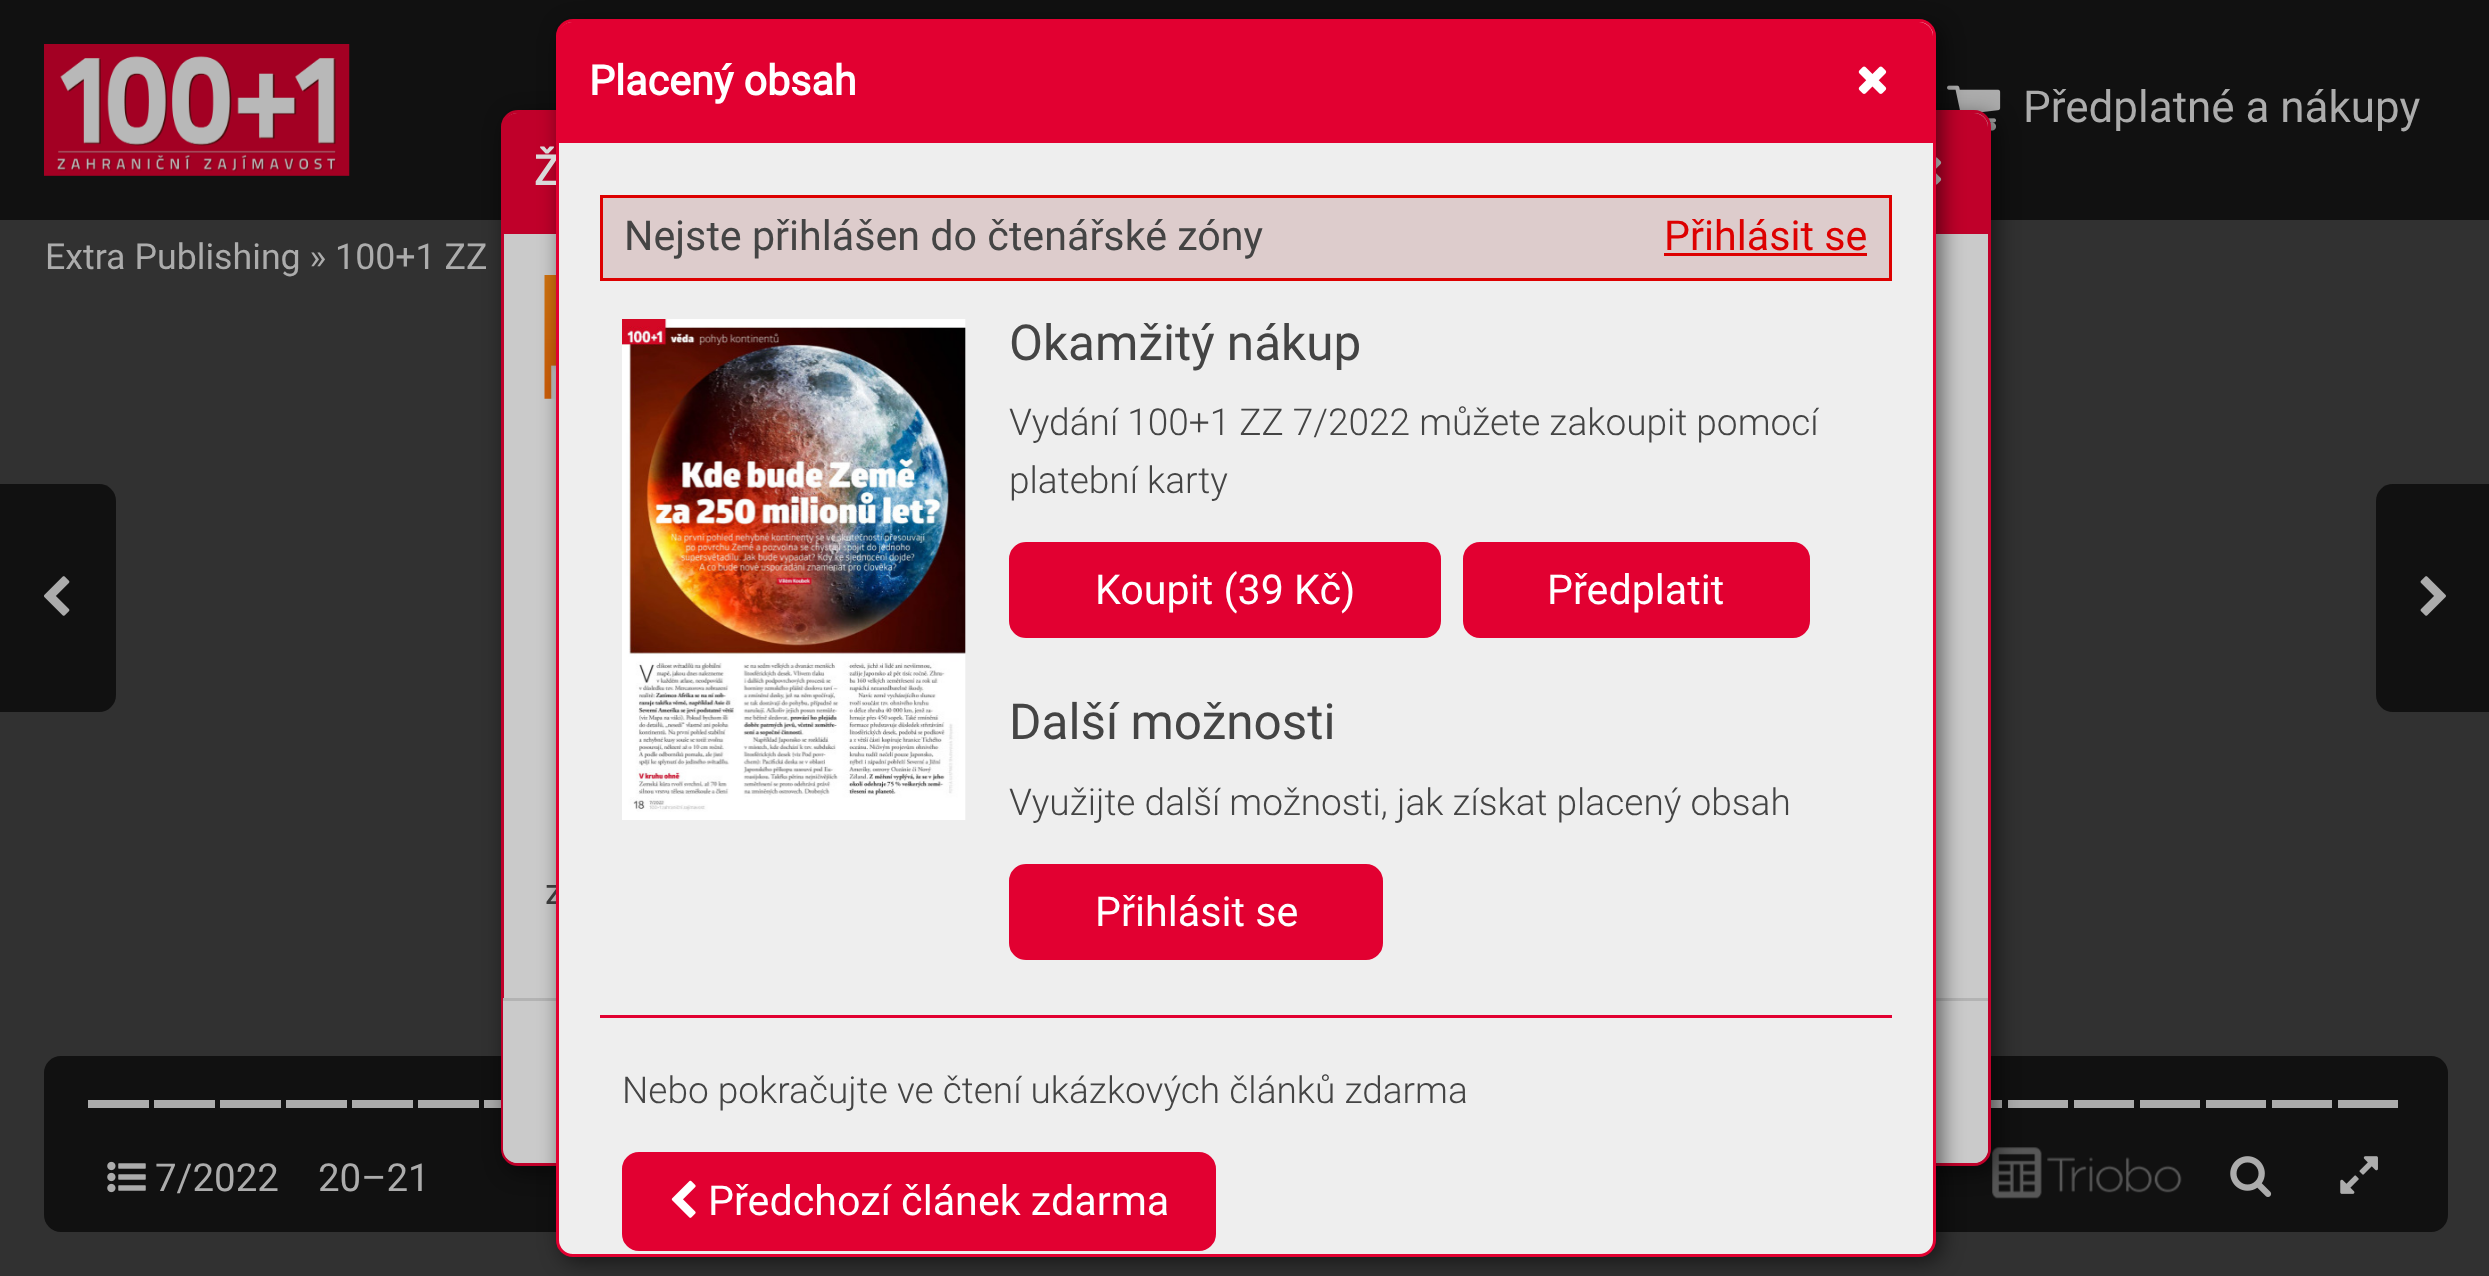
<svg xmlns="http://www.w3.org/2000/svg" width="2489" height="1276">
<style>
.a{font:44px Roboto;fill:#acacac}
.b{font:35.75px Roboto;fill:#acacac}
.c{font:38.5px Roboto;fill:#acacac}
.d{font:bold 41.25px Roboto;fill:#d9d9d9}
.e{font:35.75px Roboto;fill:#3a3a3a}
.f{font:300 37.1px Roboto;fill:#444}
.g{font:41.25px Roboto;fill:#fff}
.h{font:49.5px Roboto;fill:#444}
.i{font:41.25px Roboto;fill:#444}
.j{font:41.25px Roboto;fill:#d00}
.k{font:bold 41.25px Roboto;fill:#fff}
</style>
<rect width="100%" height="100%" fill="#313131"/>
<path fill="#111" d="M0 0h2489v220H0z"/>
<image href="5.png" x="1947" y="85" width="54" height="46"/>
<rect fill="#111" x="44" y="1056" width="2404" height="176" rx="17"/>
<path fill="#acacac" d="M418 1100h61v8H418z"/>
<path fill="#acacac" d="M484 1100h17v8H484z"/>
<path fill="#acacac" d="M1991 1100h11v8H1991z"/>
<path fill="#acacac" d="M2008 1100h60v8H2008z"/>
<image href="9.png" x="1992" y="1147" width="190" height="52"/>
<rect fill="#00000087" filter="blur(10.5px)" x="506" y="116" width="1491" height="1056" rx="17"/>
<rect fill="#cacaca" stroke="#c0002a" stroke-width="3" x="502.5" y="111.5" width="1487" height="1053" rx="15.5"/>
<path fill="#c0002a" d="M517 113h1457c7.5 0 14 6.5 14 14v107h-1485v-107c0-7.5 6.5-14 14-14z"/>
<image href="12.png" x="1936" y="157" width="6" height="28"/>
<image href="13.png" x="544" y="275" width="12" height="124"/>
<path fill="#cacaca" d="M503 998h1485v151c0 7.5-6.5 14-14 14h-1457c-7.5 0-14-6.5-14-14z"/>
<path fill="#b3b3b3" d="M503 998h1485v3H503z"/>
<rect fill="#00000087" filter="blur(10.5px)" x="561" y="25" width="1381" height="1237" rx="17"/>
<image href="4.png" x="44" y="44" width="306" height="132"/>
<path fill="#111" d="M0 484h99c9.5 0 17 7.5 17 17v194c0 9.5-7.5 17-17 17h-99z"/>
<image href="6.png" x="44" y="576" width="26" height="40"/>
<path fill="#111" d="M2393 484h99v228h-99c-9.5 0-17-7.5-17-17v-194c0-9.5 7.5-17 17-17z"/>
<image href="7.png" x="2420" y="576" width="26" height="40"/>
<path fill="#acacac" d="M88 1100h61v8H88z"/>
<path fill="#acacac" d="M154 1100h61v8H154z"/>
<path fill="#acacac" d="M220 1100h61v8H220z"/>
<path fill="#acacac" d="M286 1100h61v8H286z"/>
<path fill="#acacac" d="M352 1100h61v8H352z"/>
<path fill="#acacac" d="M2074 1100h60v8H2074z"/>
<path fill="#acacac" d="M2140 1100h60v8H2140z"/>
<path fill="#acacac" d="M2206 1100h60v8H2206z"/>
<path fill="#acacac" d="M2272 1100h60v8H2272z"/>
<path fill="#acacac" d="M2338 1100h60v8H2338z"/>
<image href="8.png" x="107" y="1161" width="39" height="32"/>
<image href="10.png" x="2230" y="1156" width="42" height="41"/>
<image href="11.png" x="2340" y="1156" width="38" height="38"/>
<text class="a" x="2023" y="122">Předplatné a nákupy</text>
<text class="b" x="45" y="269">Extra Publishing » 100+1 ZZ</text>
<text class="c" x="155" y="1191">7/2022</text>
<text class="c" x="318" y="1191">20–21</text>
<text class="d" x="534" y="185">Ž</text>
<text class="e" x="545" y="904">z</text>
<rect fill="#eee" stroke="#e20031" stroke-width="3" x="557.5" y="20.5" width="1377" height="1235" rx="15.5"/>
<rect fill="#e20031" stroke="#e20031" stroke-width="3" x="623.5" y="1153.5" width="591" height="96" rx="15.5"/>
<image href="3.png" x="671" y="1180" width="25" height="38"/>
<text class="f" x="622" y="1103">Nebo pokračujte ve čtení ukázkových článků zdarma</text>
<text class="g" x="708" y="1215">Předchozí článek zdarma</text>
<path fill="#e20031" d="M600 1015h1292v3H600z"/>
<image href="2.png" x="622" y="319" width="344" height="501"/>
<path fill="#e20031" d="M572 22h1347c7.5 0 14 6.5 14 14v107h-1375v-107c0-7.5 6.5-14 14-14z"/>
<image href="1.png" x="1858" y="66" width="29" height="28"/>
<rect fill="#e20031" stroke="#e20031" stroke-width="3" x="1010.5" y="865.5" width="371" height="93" rx="15.5"/>
<text class="g" x="1095" y="926">Přihlásit se</text>
<text class="f" x="1009" y="815">Využijte další možnosti, jak získat placený obsah</text>
<text class="h" x="1009" y="739">Další možnosti</text>
<rect fill="#e20031" stroke="#e20031" stroke-width="3" x="1464.5" y="543.5" width="344" height="93" rx="15.5"/>
<text class="g" x="1547" y="604">Předplatit</text>
<rect fill="#e20031" stroke="#e20031" stroke-width="3" x="1010.5" y="543.5" width="429" height="93" rx="15.5"/>
<text class="g" x="1095" y="604">Koupit (39 Kč)</text>
<text class="f" x="1009" y="493">platební karty</text>
<text class="f" x="1009" y="435">Vydání 100+1 ZZ 7/2022 můžete zakoupit pomocí</text>
<text class="h" x="1009" y="360">Okamžitý nákup</text>
<path fill="#dcc" stroke="#d00" stroke-width="3" d="M601.5 196.5h1289v83H601.5z"/>
<text class="i" x="624" y="250">Nejste přihlášen do čtenářské zóny</text>
<text class="j" x="1664" y="250">Přihlásit se</text>
<path fill="#d00" d="M1664 253h203v3H1664z"/>
<text class="k" x="589" y="95">Placený obsah</text>
</svg>
